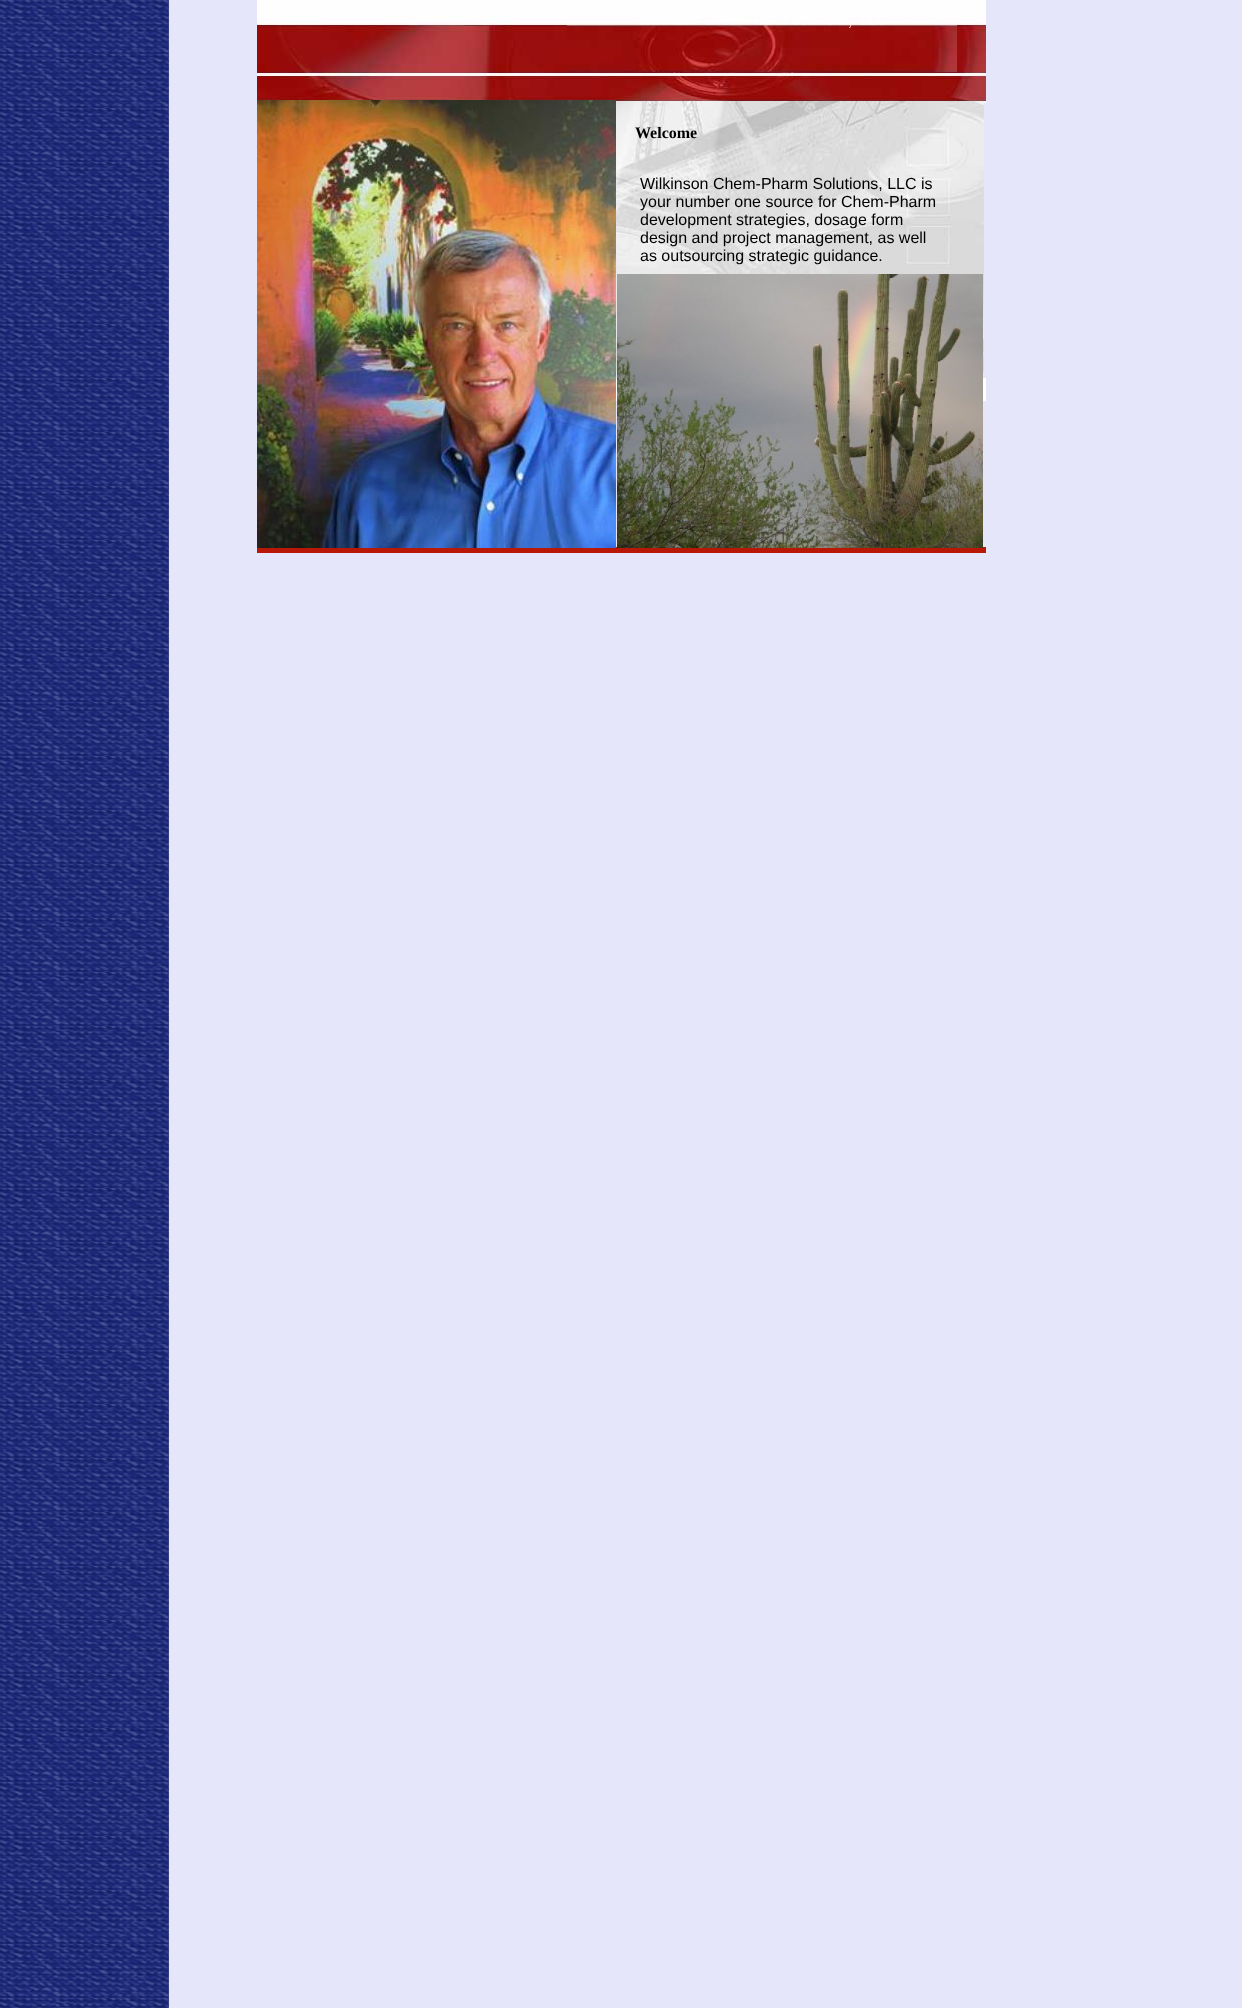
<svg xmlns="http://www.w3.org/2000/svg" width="1242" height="2008">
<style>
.a{font:bold 16px Liberation Serif;fill:#000}
.b{font:16px Liberation Sans;fill:#000}
</style>
<rect width="100%" height="100%" fill="#fff"/>
<image href="1.png" x="0" y="0" width="1242" height="2008"/>
<image href="2.png" x="257" y="0" width="729" height="103"/>
<image href="3.png" x="567" y="16" width="390" height="56"/>
<path fill="#b91806" d="M257 547h729v6H257z"/>
<image href="4.png" x="257" y="100" width="359" height="448"/>
<image href="5.png" x="616" y="101" width="368" height="271"/>
<path fill="#fff" d="M616 378h370v23H616z"/>
<image href="6.png" x="617" y="274" width="366" height="274"/>
<text class="a" x="635" y="138">Welcome</text>
<text class="b" x="640" y="189">Wilkinson Chem-Pharm Solutions, LLC is</text>
<text class="b" x="640" y="207">your number one source for Chem-Pharm</text>
<text class="b" x="640" y="225">development strategies, dosage form</text>
<text class="b" x="640" y="243">design and project management, as well</text>
<text class="b" x="640" y="261">as outsourcing strategic guidance.</text>
</svg>
